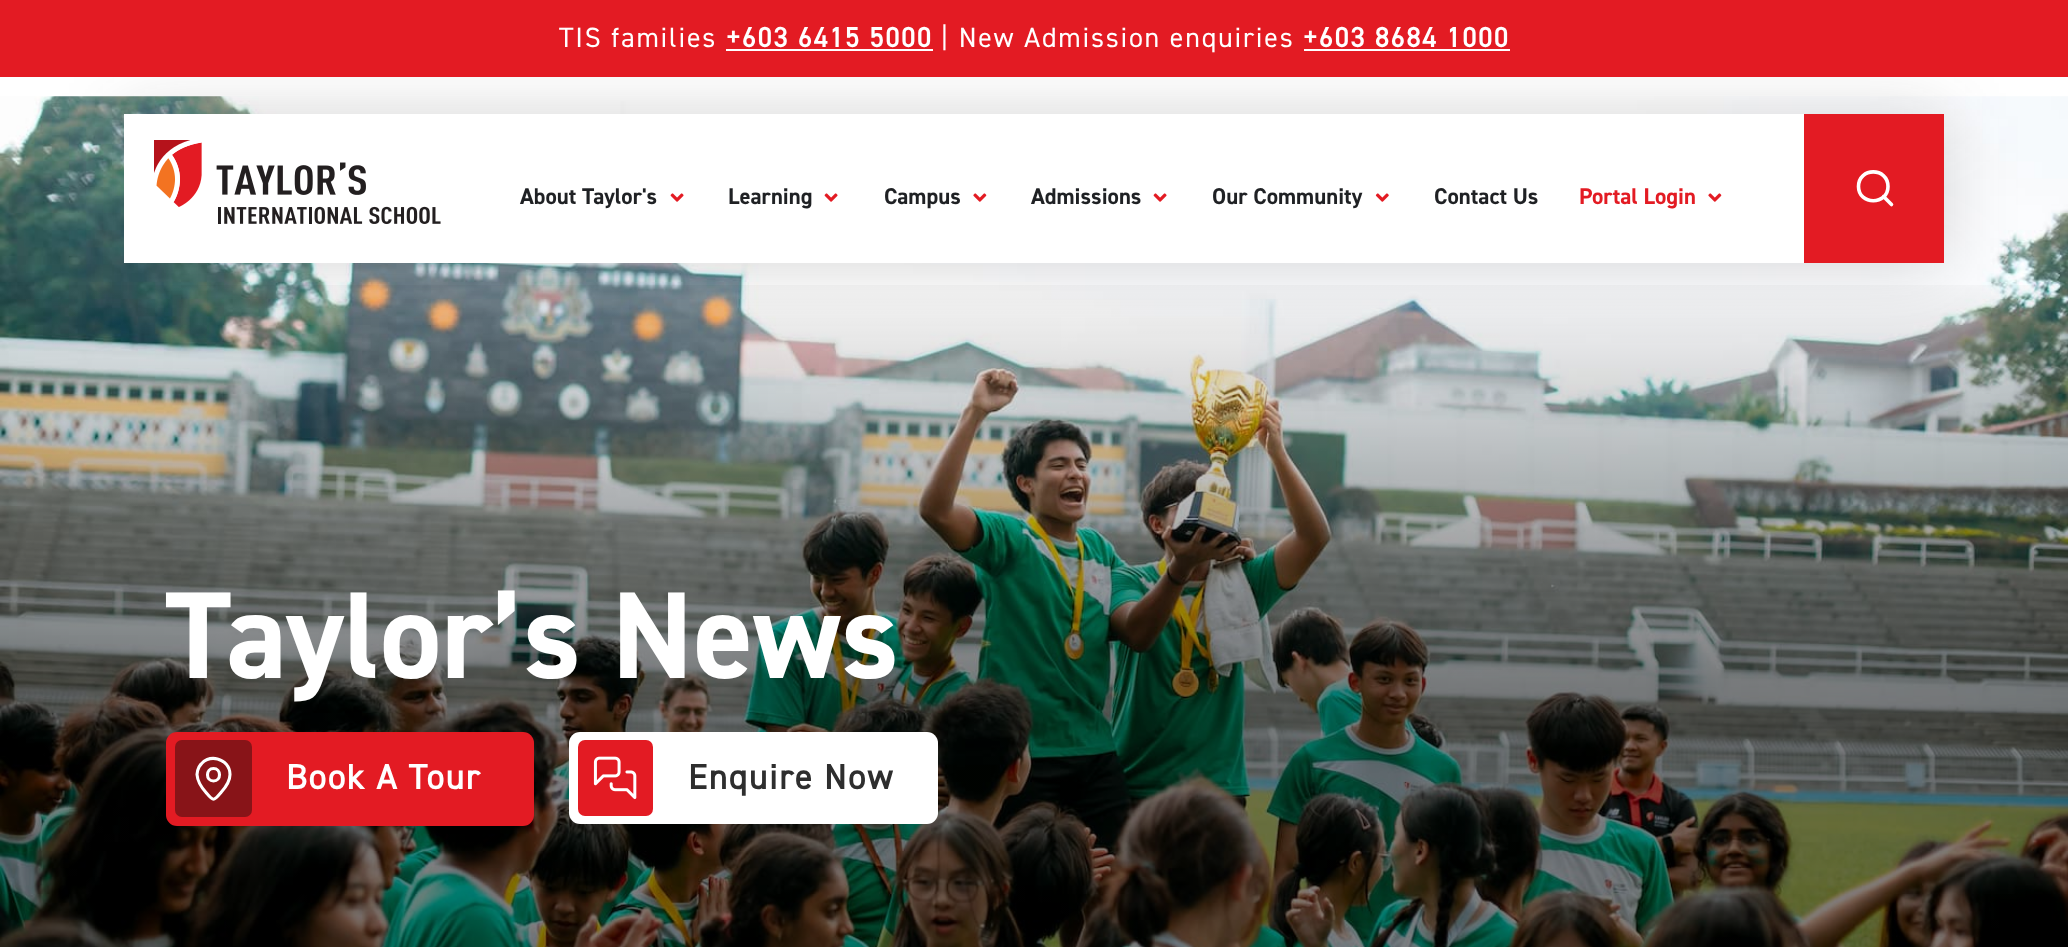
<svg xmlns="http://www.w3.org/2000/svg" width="2068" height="947">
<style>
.a{font:28px 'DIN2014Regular';letter-spacing:1.75px;fill:#fff}
.b{font:bold 28px 'DIN2014Regular';letter-spacing:1.75px;fill:#fff}
.c{font:bold 22.75px 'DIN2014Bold';fill:#1f2124}
.d{font:bold 22.75px 'DIN2014Bold';fill:#e31b23}
.e{font:bold 124px 'DIN2014Bold';fill:#fff}
.f{font:bold 35px 'DIN2014Regular';letter-spacing:1.75px;fill:#fff}
.g{font:bold 35px 'DIN2014Regular';letter-spacing:1.75px;fill:#2e2e2e}
</style>
<defs>
<linearGradient id="g1" gradientUnits="userSpaceOnUse" x1="1034" y1="96" x2="1034" y2="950"><stop offset="0.2" stop-color="#000" stop-opacity="0"/><stop offset="0.69" stop-color="#000" stop-opacity="0.5"/></linearGradient>
</defs>
<rect width="100%" height="100%" fill="#fff"/>
<image href="5.png" x="0" y="96" width="2068" height="851"/>
<path fill="url(#g1)" d="M0 285h2068v662H0z"/>
<path fill="#2e2e2e33" filter="blur(35px)" d="M124 116h1820v148H124z"/>
<path fill="#e31b23" d="M0 0h2068v77H0z"/>
<path fill="#fff" d="M726 49h207v2H726z"/>
<path fill="#fff" d="M1304 49h206v2H1304z"/>
<path fill="#fff" d="M124 114h1680v149H124z"/>
<image href="1.png" x="154" y="140" width="287" height="84"/>
<image href="2.png" x="670" y="193" width="14" height="9"/>
<image href="2.png" x="824" y="193" width="14" height="9"/>
<image href="3.png" x="973" y="193" width="14" height="9"/>
<image href="2.png" x="1153" y="193" width="14" height="9"/>
<image href="4.png" x="1375" y="193" width="14" height="9"/>
<image href="3.png" x="1708" y="193" width="14" height="9"/>
<path fill="#e31b23" d="M1804 114h140v149H1804z"/>
<path fill="none" stroke="#fff" stroke-width="3.6" stroke-linecap="round" stroke-linejoin="round" d="M1891.5 204.5l-8-8m4.5-10c0 19-29.5 19-29.5 0c0-19.5 29.5-19.5 29.5 0z"/>
<rect fill="#e31b23" x="166" y="732" width="368" height="94" rx="11"/>
<rect fill="#881418" x="175" y="740" width="77" height="77" rx="7"/>
<path fill="none" stroke="#fff" stroke-width="3.1" stroke-linecap="round" stroke-linejoin="round" d="M230 774.5c0 7-4.5 13-9 18c-7.5 9-7.5 9-15 0c-4.5-5-8.5-11-9-18c0-2.5 1-5.5 2-7.5c8-15 31-9 31 7.5zm-16.5 6.5c8 0 8-12.5 0-12.5c-8 0-8 12.5 0 12.5z"/>
<rect fill="#fff" x="569" y="732" width="369" height="92" rx="11"/>
<rect fill="#e31b23" x="578" y="740" width="75" height="76" rx="7"/>
<image href="6.png" x="593" y="756" width="44" height="44"/>
<text class="a" x="559" y="47">TIS families</text>
<text class="b" x="726" y="47">+603 6415 5000</text>
<text class="a" x="941" y="47">| New Admission enquiries</text>
<text class="b" x="1303" y="47">+603 8684 1000</text>
<text class="c" x="520" y="204">About Taylor's</text>
<text class="c" x="728" y="204">Learning</text>
<text class="c" x="884" y="204">Campus</text>
<text class="c" x="1031" y="204">Admissions</text>
<text class="c" x="1212" y="204">Our Community</text>
<text class="c" x="1434" y="204">Contact Us</text>
<text class="d" x="1579" y="204">Portal Login</text>
<text class="e" x="165" y="678">Taylor’s News</text>
<text class="f" x="286" y="789">Book A Tour</text>
<text class="g" x="688" y="789">Enquire Now</text>
</svg>
